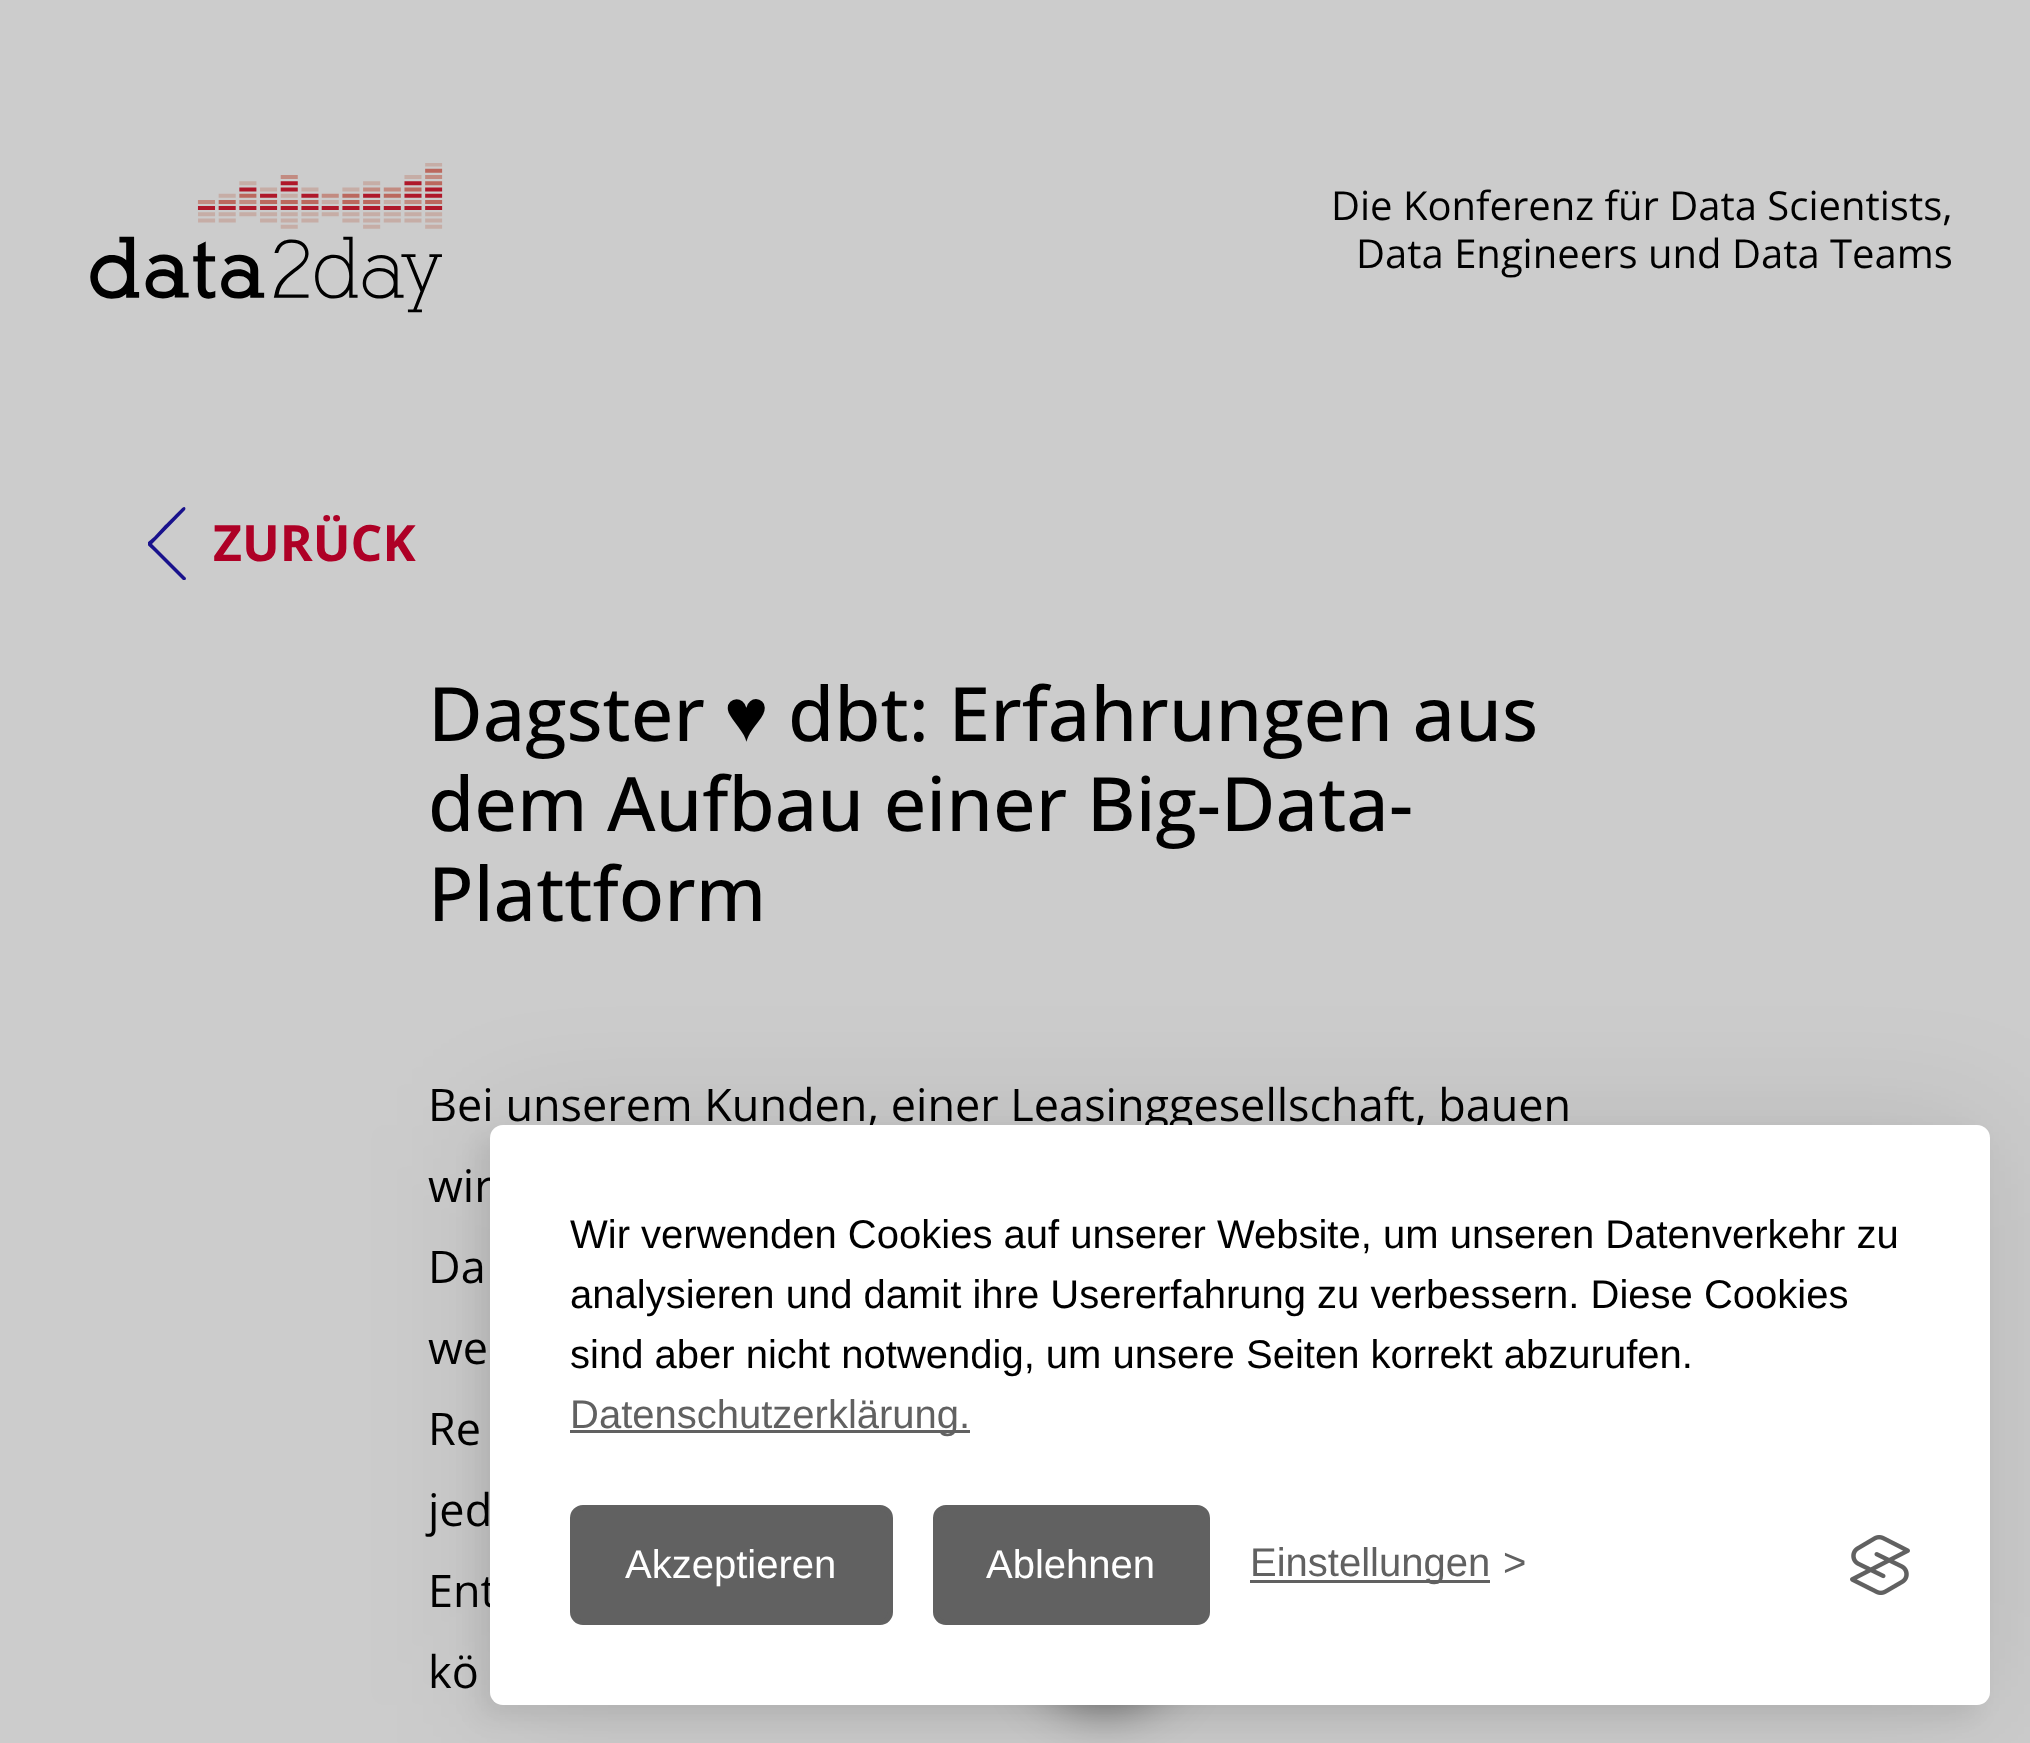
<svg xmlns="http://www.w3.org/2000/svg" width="2030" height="1743">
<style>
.a{font:40px Open Sans;fill:#000}
.b{font:bold 50px Open Sans;fill:#ae0026}
.c{font:500 75px Open Sans;fill:#000}
.d{font:75px Liberation Sans;fill:#000}
.e{font:45px Open Sans;fill:#000}
.f{font:40px Liberation Sans;fill:#000}
.g{font:40px Liberation Sans;fill:#616161}
.h{font:40px Liberation Sans;fill:#fff}
</style>
<defs>
<clipPath id="clip1"><path d="M148 505h40v75H148z"/></clipPath>
</defs>
<rect width="100%" height="100%" fill="#ccc"/>
<image href="1.png" x="90" y="163" width="353" height="150"/>
<g clip-path="url(#clip1)">
<path fill="#19128c" fill-rule="evenodd" d="M184 507c-2 0-16 16-19 18l-11 12c-9 8-9 5 0 14l29 29c1 2 3 0 3-2l-34-34l33-34c1-2 0-3-1-3z"/>
</g>
<rect fill="#0000001a" filter="blur(62.5px)" x="490" y="1125" width="1500" height="580" rx="13"/>
<rect fill="#00000012" filter="blur(12.5px)" x="478" y="1138" width="1500" height="580" rx="13"/>
<rect fill="#00000080" filter="blur(25px)" x="1030" y="1558" width="150" height="150" rx="75"/>
<text class="a" x="1331" y="220">Die Konferenz für Data Scientists,</text>
<text class="a" x="1356" y="268">Data Engineers und Data Teams</text>
<text class="b" x="213" y="561">ZURÜCK</text>
<text class="c" x="428" y="741">Dagster</text>
<text class="d" x="724" y="741">♥</text>
<text class="c" x="788" y="741">dbt: Erfahrungen aus</text>
<text class="c" x="428" y="831">dem Aufbau einer Big-Data-</text>
<text class="c" x="428" y="921">Plattform</text>
<text class="e" x="428" y="1121">Bei unserem Kunden, einer Leasinggesellschaft, bauen</text>
<text class="e" x="428" y="1202">wir</text>
<text class="e" x="428" y="1283">Da</text>
<text class="e" x="428" y="1364">we</text>
<text class="e" x="428" y="1445">Re</text>
<text class="e" x="428" y="1526">jed</text>
<text class="e" x="428" y="1607">Ent</text>
<text class="e" x="428" y="1688">kö</text>
<rect fill="#fff" x="490" y="1125" width="1500" height="580" rx="13"/>
<text class="f" x="570" y="1248">Wir verwenden Cookies auf unserer Website, um unseren Datenverkehr zu</text>
<text class="f" x="570" y="1308">analysieren und damit ihre Usererfahrung zu verbessern. Diese Cookies</text>
<text class="f" x="570" y="1368">sind aber nicht notwendig, um unsere Seiten korrekt abzurufen.</text>
<path fill="#616161" d="M570 1430h400v3H570z"/>
<text class="g" x="570" y="1428">Datenschutzerklärung.</text>
<rect fill="#616161" stroke="#616161" stroke-width="5" x="572.5" y="1507.5" width="318" height="115" rx="10.5"/>
<text class="h" x="625" y="1578">Akzeptieren</text>
<rect fill="#616161" stroke="#616161" stroke-width="5" x="935.5" y="1507.5" width="272" height="115" rx="10.5"/>
<text class="h" x="986" y="1578">Ablehnen</text>
<path fill="#616161" d="M1250 1580h240v3H1250z"/>
<text class="g" x="1250" y="1576">Einstellungen</text>
<text class="g" x="1503" y="1576">&gt;</text>
<image href="2.png" x="1850" y="1535" width="60" height="60"/>
</svg>
